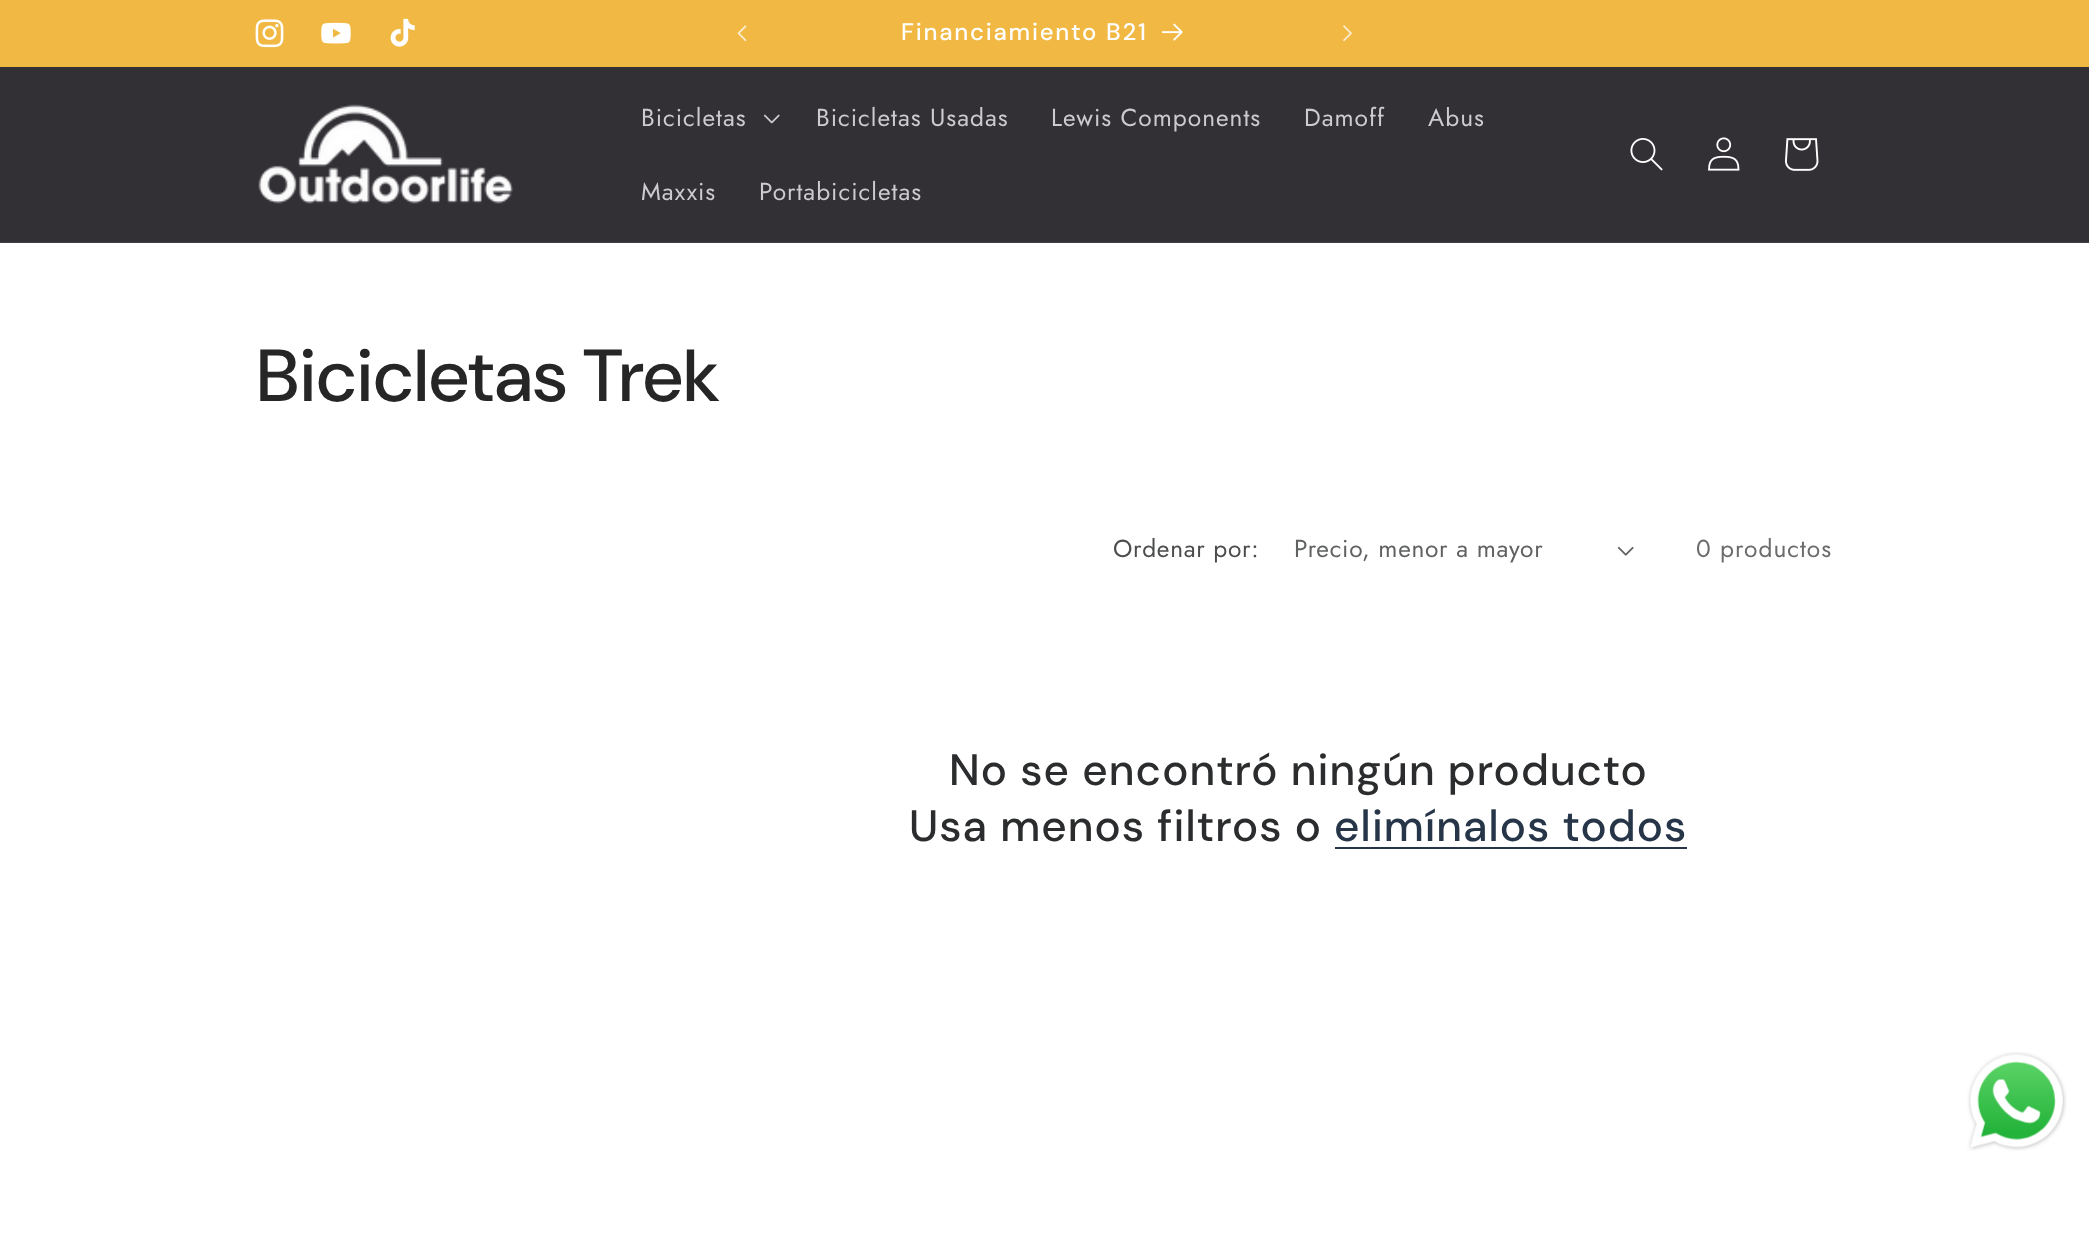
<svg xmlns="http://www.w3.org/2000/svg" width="2089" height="1238">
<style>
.a{font:500 23.9px 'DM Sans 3';letter-spacing:1.75px;fill:#fff}
.b{font:24.5px Jost;letter-spacing:1px;fill:#cccbcd}
.c{font:500 73.5px DM Sans;letter-spacing:1.1px;fill:#262626}
.d{font:24.5px Jost;letter-spacing:0.7px;fill:#4b4c4d}
.e{font:24.5px Jost;letter-spacing:0.7px;fill:#606162}
.f{font:24.5px Jost;letter-spacing:1px;fill:#6b6b6c}
.g{font:500 44.1px 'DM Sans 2';letter-spacing:1.1px;fill:#2b2c2d}
.h{font:500 44.1px 'DM Sans 2';letter-spacing:1.1px;fill:#263548}
</style>
<rect width="100%" height="100%" fill="#fff"/>
<path fill="#f1b944" d="M0 0h2089v67H0z"/>
<image href="1.png" x="255" y="19" width="29" height="29"/>
<image href="2.png" x="321" y="22" width="30" height="22"/>
<image href="3.png" x="390" y="18" width="25" height="29"/>
<image href="4.png" x="737" y="25" width="10" height="17"/>
<image href="5.png" x="1162" y="23" width="21" height="18"/>
<image href="6.png" x="1343" y="25" width="9" height="16"/>
<path fill="#322f35" d="M0 67h2089v175H0z"/>
<path fill="#424045" d="M0 242h2089v1H0z"/>
<image href="7.png" x="258" y="104" width="256" height="100"/>
<image href="8.png" x="763" y="114" width="17" height="10"/>
<image href="9.png" x="1630" y="138" width="33" height="33"/>
<image href="10.png" x="1708" y="137" width="32" height="34"/>
<image href="11.png" x="1785" y="138" width="34" height="33"/>
<image href="12.png" x="1617" y="546" width="17" height="10"/>
<path fill="#263548" d="M1335 847h352v2H1335z"/>
<image href="13.png" x="1967" y="1052" width="100" height="99"/>
<text class="a" x="901" y="40">Financiamiento B21</text>
<text class="b" x="641" y="126">Bicicletas</text>
<text class="b" x="816" y="126">Bicicletas Usadas</text>
<text class="b" x="1051" y="126">Lewis Components</text>
<text class="b" x="1304" y="126">Damoff</text>
<text class="b" x="1428" y="126">Abus</text>
<text class="b" x="641" y="200">Maxxis</text>
<text class="b" x="759" y="200">Portabicicletas</text>
<text class="c" x="257" y="401">Bicicletas Trek</text>
<text class="d" x="1113" y="557">Ordenar por:</text>
<text class="e" x="1294" y="557">Precio, menor a mayor</text>
<text class="f" x="1696" y="557">0 productos</text>
<text class="g" x="949" y="785">No se encontró ningún producto</text>
<text class="g" x="909" y="841">Usa menos filtros o</text>
<text class="h" x="1334" y="841">elimínalos todos</text>
</svg>
